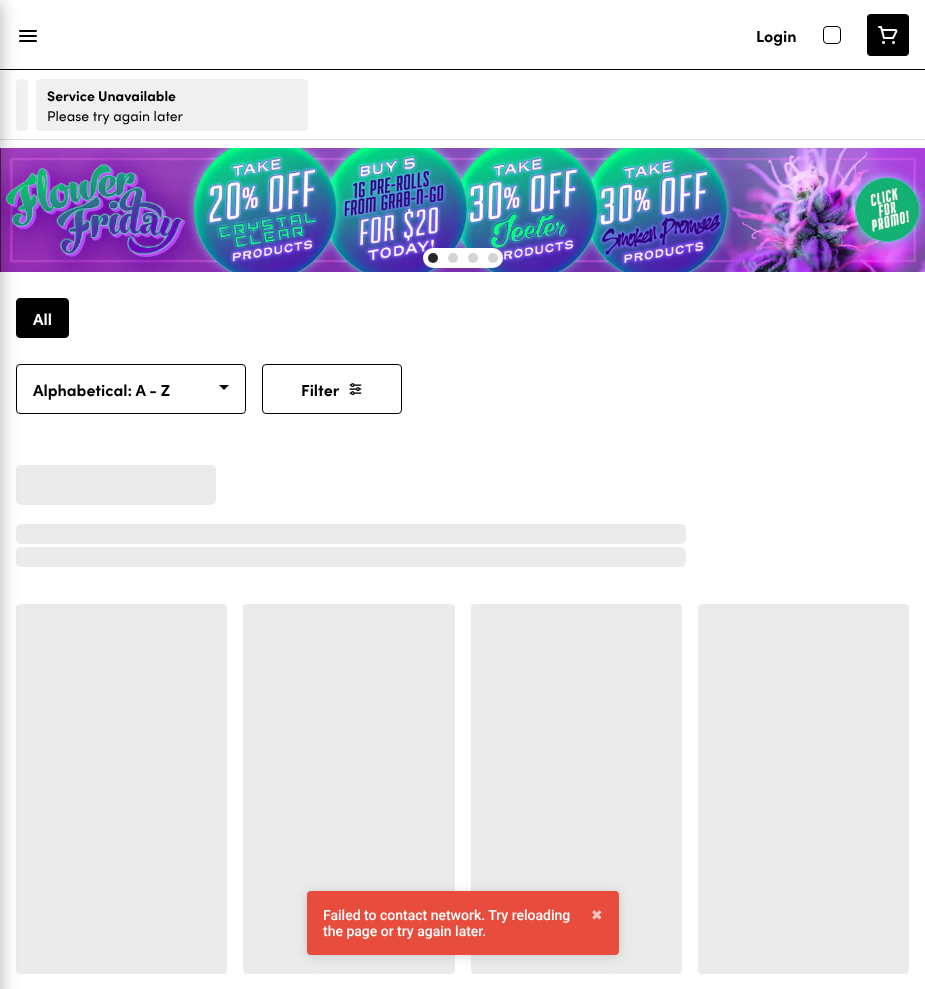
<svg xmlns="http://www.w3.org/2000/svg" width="925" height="989">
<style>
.a{font:bold 16px Sofia;fill:#000}
.b{font:bold 14px Sofia;fill:#000}
.c{font:14px Sofia;fill:#000}
.d{font:bold 16px Sofia;fill:#fff}
.e{font:500 14px Roboto;fill:#fff}
.f{font:14px DejaVu Sans;fill:#f8c9c5}
</style>
<defs>
<clipPath id="clip1"><rect x="243" y="604" width="212" height="370" rx="4"/></clipPath>
<linearGradient id="g1" gradientUnits="userSpaceOnUse" x1="32" y1="789" x2="244" y2="789"><stop offset="0" stop-color="#ebebeb"/><stop offset="0.5" stop-color="#f5f5f5"/><stop offset="1" stop-color="#ebebeb"/></linearGradient>
</defs>
<rect width="100%" height="100%" fill="#fff"/>
<path fill="#000" d="M0 69h925v1H0z"/>
<rect fill="#000" x="19" y="35" width="18" height="2" rx="1"/>
<rect fill="#000" x="19" y="40" width="18" height="2" rx="1"/>
<rect fill="#000" x="19" y="30" width="18" height="2" rx="1"/>
<path fill="#e1e1e1" d="M0 139h925v1H0z"/>
<rect fill="#f0f0f0" stroke="#f0f0f0" x="16.5" y="79.5" width="11" height="51" rx="3.5"/>
<path fill="#000" d="M0 148h1v124H0z"/>
<image href="2.png" x="0" y="148" width="925" height="124"/>
<rect fill="#000" stroke="#000" x="16.5" y="298.5" width="52" height="39" rx="3.5"/>
<rect fill="none" stroke="#000" x="16.5" y="364.5" width="229" height="49" rx="3.5"/>
<rect fill="#ebebeb" x="16" y="465" width="200" height="40" rx="5"/>
<rect fill="#ebebeb" x="16" y="524" width="670" height="20" rx="5"/>
<rect fill="#ebebeb" x="16" y="547" width="670" height="20" rx="5"/>
<rect fill="#ebebeb" x="16" y="604" width="211" height="370" rx="4"/>
<path fill="#0000004d" filter="blur(9px)" d="M-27 2h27v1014H-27z"/>
<rect fill="none" stroke="#000" x="823.5" y="26.5" width="17" height="17" rx="3.5"/>
<rect fill="#000" x="867" y="14" width="42" height="42" rx="4"/>
<image href="1.png" x="878" y="26" width="20" height="18"/>
<rect fill="#f0f0f0" stroke="#f0f0f0" x="36.5" y="79.5" width="271" height="51" rx="3.5"/>
<rect fill="#fff" x="423" y="248" width="80" height="20" rx="10"/>
<circle fill="#272727" cx="433" cy="258" r="5"/>
<circle fill="#d4d4d4" cx="453" cy="258" r="5"/>
<circle fill="#d4d4d4" cx="473" cy="258" r="5"/>
<circle fill="#d4d4d4" cx="493" cy="258" r="5"/>
<path fill="#000" d="M219 385h10l-5 5z"/>
<rect fill="none" stroke="#000" x="262.5" y="364.5" width="139" height="49" rx="3.5"/>
<image href="3.png" x="349" y="383" width="13" height="13"/>
<rect fill="#ebebeb" x="243" y="604" width="212" height="370" rx="4"/>
<g clip-path="url(#clip1)">
<path fill="url(#g1)" d="M243 604h1v370H243z"/>
</g>
<rect fill="#ebebeb" x="471" y="604" width="211" height="370" rx="4"/>
<rect fill="#ebebeb" x="698" y="604" width="211" height="370" rx="4"/>
<rect fill="#0000000d" filter="blur(7.5px)" x="307" y="893" width="312" height="64" rx="4"/>
<rect fill="#0000001a" filter="blur(5px)" x="307" y="892" width="312" height="64" rx="4"/>
<rect fill="#e74c3c" x="307" y="891" width="312" height="64" rx="4"/>
<text class="a" x="756" y="42">Login</text>
<text class="b" x="47" y="101">Service Unavailable</text>
<text class="c" x="47" y="121">Please try again later</text>
<text class="d" x="33" y="325">All</text>
<text class="a" x="33" y="396">Alphabetical: A - Z</text>
<text class="a" x="301" y="396">Filter</text>
<text class="e" x="323" y="920">Failed to contact network. Try reloading</text>
<text class="e" x="323" y="936">the page or try again later.</text>
<text class="f" x="591" y="920">✖︎</text>
</svg>
